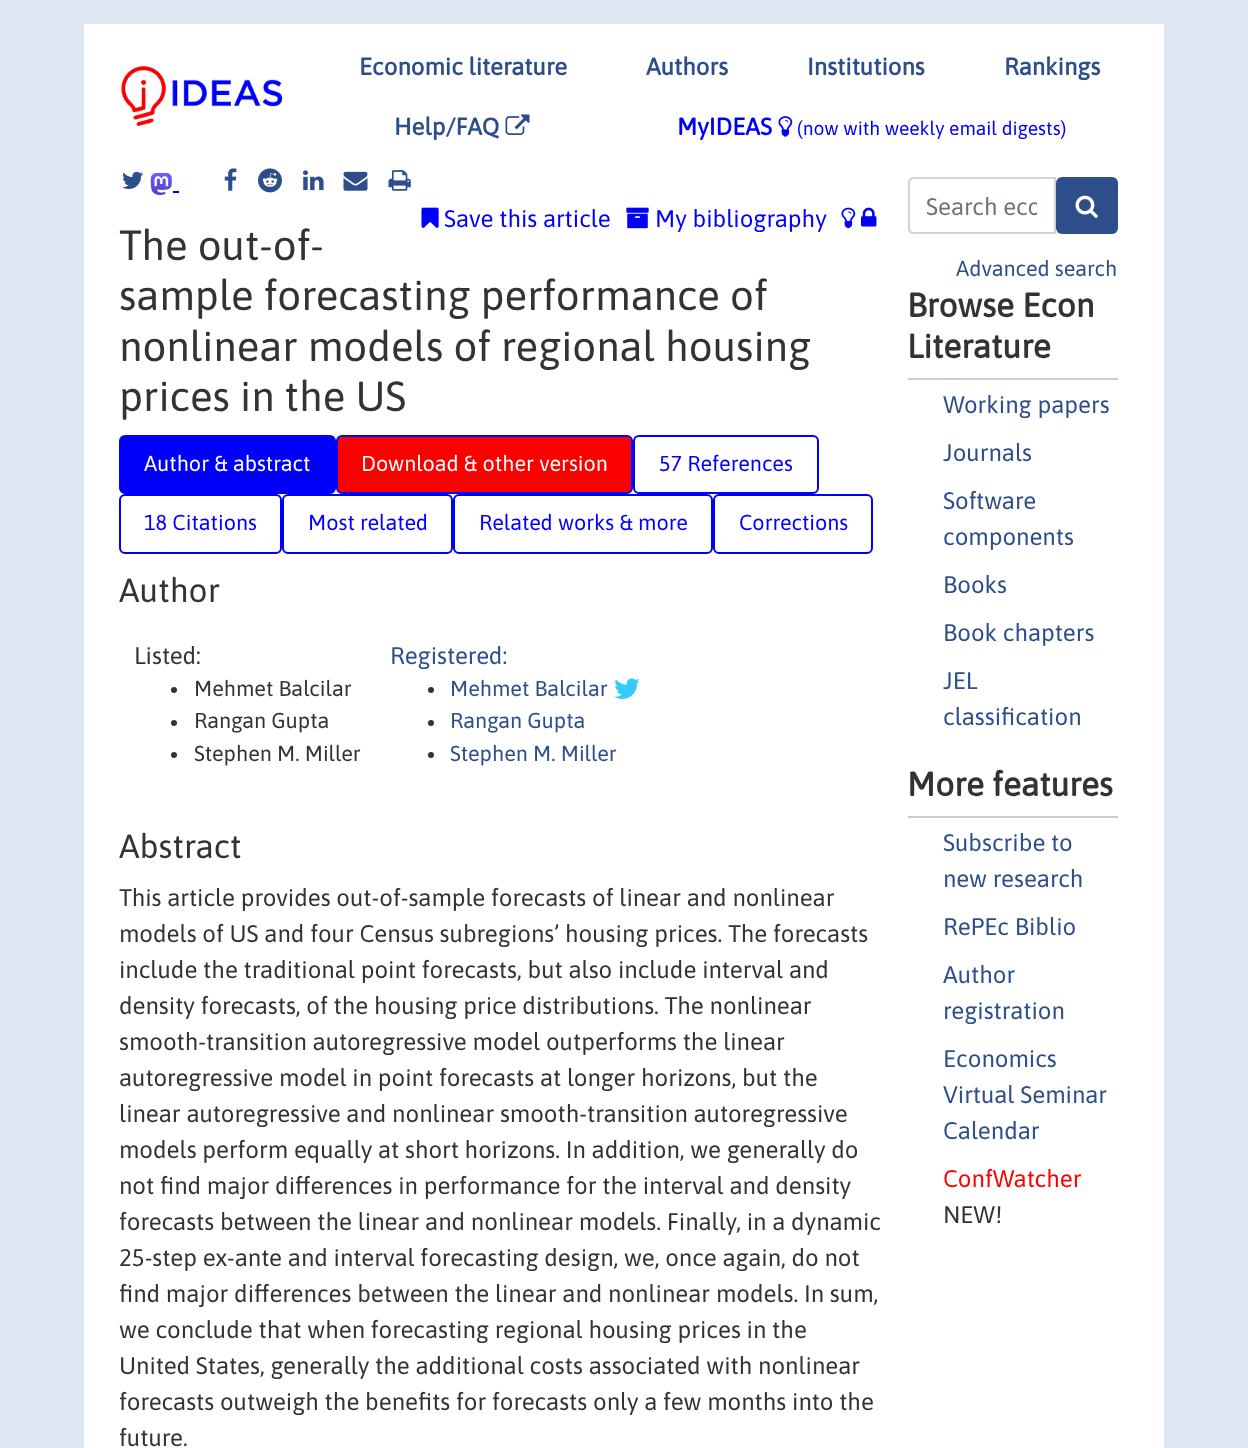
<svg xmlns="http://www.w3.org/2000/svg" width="1248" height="1448">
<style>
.a{font:bold 24px Asap;fill:#2d4e8b}
.b{font:bold 24px Asap;fill:#00f}
.c{font:19.25px Asap;fill:#00f}
.d{font:24px Asap;fill:#00f}
.e{font:42px Asap;fill:#333}
.f{font:21.6px Asap;fill:#fff}
.g{font:21.6px Asap;fill:#00f}
.h{font:33.5px Asap;fill:#333}
.i{font:24px Asap;fill:#333}
.j{font:21.6px Asap;fill:#333}
.k{font:24px Asap;fill:#2d4e8b}
.l{font:21.6px Asap;fill:#2d4e8b}
.m{font:24px Asap;fill:#6c757d}
.n{font:bold 33.5px Asap;fill:#333}
.o{font:24px Asap;fill:#f00}
</style>
<defs>
<clipPath id="clip1"><path d="M927 192h110v27H927z"/></clipPath>
</defs>
<rect width="100%" height="100%" fill="#dfe7f2"/>
<path fill="#fff" d="M84 24h1080v1424H84z"/>
<image href="1.png" x="120" y="66" width="164" height="61"/>
<image href="2.png" x="505" y="114" width="25" height="21"/>
<image href="3.png" x="778" y="116" width="15" height="21"/>
<image href="4.png" x="122" y="171" width="21" height="18"/>
<image href="5.png" x="150" y="173" width="22" height="22"/>
<path fill="#00f" d="M173 191h6v2H173z"/>
<image href="6.png" x="224" y="168" width="13" height="23"/>
<image href="7.png" x="258" y="168" width="24" height="25"/>
<image href="8.png" x="303" y="170" width="21" height="21"/>
<image href="9.png" x="343" y="171" width="25" height="20"/>
<image href="10.png" x="388" y="170" width="23" height="21"/>
<image href="11.png" x="421" y="207" width="18" height="21"/>
<image href="12.png" x="626" y="207" width="23" height="22"/>
<image href="13.png" x="841" y="207" width="15" height="22"/>
<image href="14.png" x="861" y="207" width="16" height="20"/>
<rect fill="#0000fc" stroke="#0000fc" stroke-width="2" x="120" y="436" width="215" height="57" rx="5"/>
<rect fill="#fc0000" stroke="#0000fc" stroke-width="2" x="337" y="436" width="295" height="57" rx="5"/>
<rect fill="none" stroke="#0000fc" stroke-width="2" x="634" y="436" width="184" height="57" rx="5"/>
<rect fill="none" stroke="#0000fc" stroke-width="2" x="120" y="495" width="161" height="58" rx="5"/>
<rect fill="none" stroke="#0000fc" stroke-width="2" x="283" y="495" width="169" height="58" rx="5"/>
<rect fill="none" stroke="#0000fc" stroke-width="2" x="454" y="495" width="258" height="58" rx="5"/>
<rect fill="none" stroke="#0000fc" stroke-width="2" x="714" y="495" width="158" height="58" rx="5"/>
<circle fill="#333" cx="174" cy="690" r="3"/>
<circle fill="#333" cx="174" cy="723" r="3"/>
<circle fill="#333" cx="174" cy="755" r="3"/>
<circle fill="#333" cx="431" cy="690" r="3"/>
<image href="15.png" x="614" y="678" width="26" height="21"/>
<circle fill="#333" cx="431" cy="723" r="3"/>
<circle fill="#333" cx="431" cy="755" r="3"/>
<path fill="none" stroke="#ced4da" stroke-width="2" d="M914 178h141v55h-141c-3 0-5-2-5-5v-45c0-3 2-5 5-5z"/>
<rect fill="#2d4e8b" x="1056" y="177" width="62" height="57" rx="6"/>
<image href="16.png" x="1075" y="195" width="23" height="23"/>
<path fill="#ccc" d="M908 378h210v2H908z"/>
<path fill="#ccc" d="M908 816h210v2H908z"/>
<text class="a" x="359" y="75">Economic literature</text>
<text class="a" x="646" y="75">Authors</text>
<text class="a" x="807" y="75">Institutions</text>
<text class="a" x="1004" y="75">Rankings</text>
<text class="a" x="394" y="135">Help/FAQ</text>
<text class="b" x="677" y="135">MyIDEAS</text>
<text class="c" x="797" y="135">(now with weekly email digests)</text>
<text class="d" x="444" y="227">Save this article</text>
<text class="d" x="655" y="227">My bibliography</text>
<text class="e" x="119" y="260">The out-of-</text>
<text class="e" x="119" y="310">sample forecasting performance of</text>
<text class="e" x="119" y="361">nonlinear models of regional housing</text>
<text class="e" x="119" y="411">prices in the US</text>
<text class="f" x="144" y="471">Author &amp; abstract</text>
<text class="f" x="361" y="471">Download &amp; other version</text>
<text class="g" x="659" y="471">57 References</text>
<text class="g" x="144" y="530">18 Citations</text>
<text class="g" x="308" y="530">Most related</text>
<text class="g" x="479" y="530">Related works &amp; more</text>
<text class="g" x="739" y="530">Corrections</text>
<text class="h" x="119" y="602">Author</text>
<text class="i" x="134" y="664">Listed:</text>
<text class="j" x="194" y="696">Mehmet Balcilar</text>
<text class="j" x="194" y="728">Rangan Gupta</text>
<text class="j" x="194" y="761">Stephen M. Miller</text>
<text class="k" x="390" y="664">Registered:</text>
<text class="l" x="450" y="696">Mehmet Balcilar</text>
<text class="l" x="450" y="728">Rangan Gupta</text>
<text class="l" x="450" y="761">Stephen M. Miller</text>
<text class="h" x="119" y="858">Abstract</text>
<text class="i" x="119" y="906">This article provides out-of-sample forecasts of linear and nonlinear</text>
<text class="i" x="119" y="942">models of US and four Census subregions’ housing prices. The forecasts</text>
<text class="i" x="119" y="978">include the traditional point forecasts, but also include interval and</text>
<text class="i" x="119" y="1014">density forecasts, of the housing price distributions. The nonlinear</text>
<text class="i" x="119" y="1050">smooth-transition autoregressive model outperforms the linear</text>
<text class="i" x="119" y="1086">autoregressive model in point forecasts at longer horizons, but the</text>
<text class="i" x="119" y="1122">linear autoregressive and nonlinear smooth-transition autoregressive</text>
<text class="i" x="119" y="1158">models perform equally at short horizons. In addition, we generally do</text>
<text class="i" x="119" y="1194">not find major differences in performance for the interval and density</text>
<text class="i" x="119" y="1230">forecasts between the linear and nonlinear models. Finally, in a dynamic</text>
<text class="i" x="119" y="1266">25-step ex-ante and interval forecasting design, we, once again, do not</text>
<text class="i" x="119" y="1302">find major differences between the linear and nonlinear models. In sum,</text>
<text class="i" x="119" y="1338">we conclude that when forecasting regional housing prices in the</text>
<text class="i" x="119" y="1374">United States, generally the additional costs associated with nonlinear</text>
<text class="i" x="119" y="1410">forecasts outweigh the benefits for forecasts only a few months into the</text>
<text class="i" x="119" y="1446">future.</text>
<g clip-path="url(#clip1)">
<text class="m" x="926" y="215">Search eco</text>
</g>
<text class="l" x="956" y="276">Advanced search</text>
<text class="n" x="907" y="317">Browse Econ</text>
<text class="n" x="907" y="358">Literature</text>
<text class="k" x="943" y="413">Working papers</text>
<text class="k" x="943" y="461">Journals</text>
<text class="k" x="943" y="509">Software</text>
<text class="k" x="943" y="545">components</text>
<text class="k" x="943" y="593">Books</text>
<text class="k" x="943" y="641">Book chapters</text>
<text class="k" x="943" y="689">JEL</text>
<text class="k" x="943" y="725">classification</text>
<text class="n" x="907" y="796">More features</text>
<text class="k" x="943" y="851">Subscribe to</text>
<text class="k" x="943" y="887">new research</text>
<text class="k" x="943" y="935">RePEc Biblio</text>
<text class="k" x="943" y="983">Author</text>
<text class="k" x="943" y="1019">registration</text>
<text class="k" x="943" y="1067">Economics</text>
<text class="k" x="943" y="1103">Virtual Seminar</text>
<text class="k" x="943" y="1139">Calendar</text>
<text class="o" x="943" y="1187">ConfWatcher</text>
<text class="i" x="943" y="1223">NEW!</text>
</svg>
